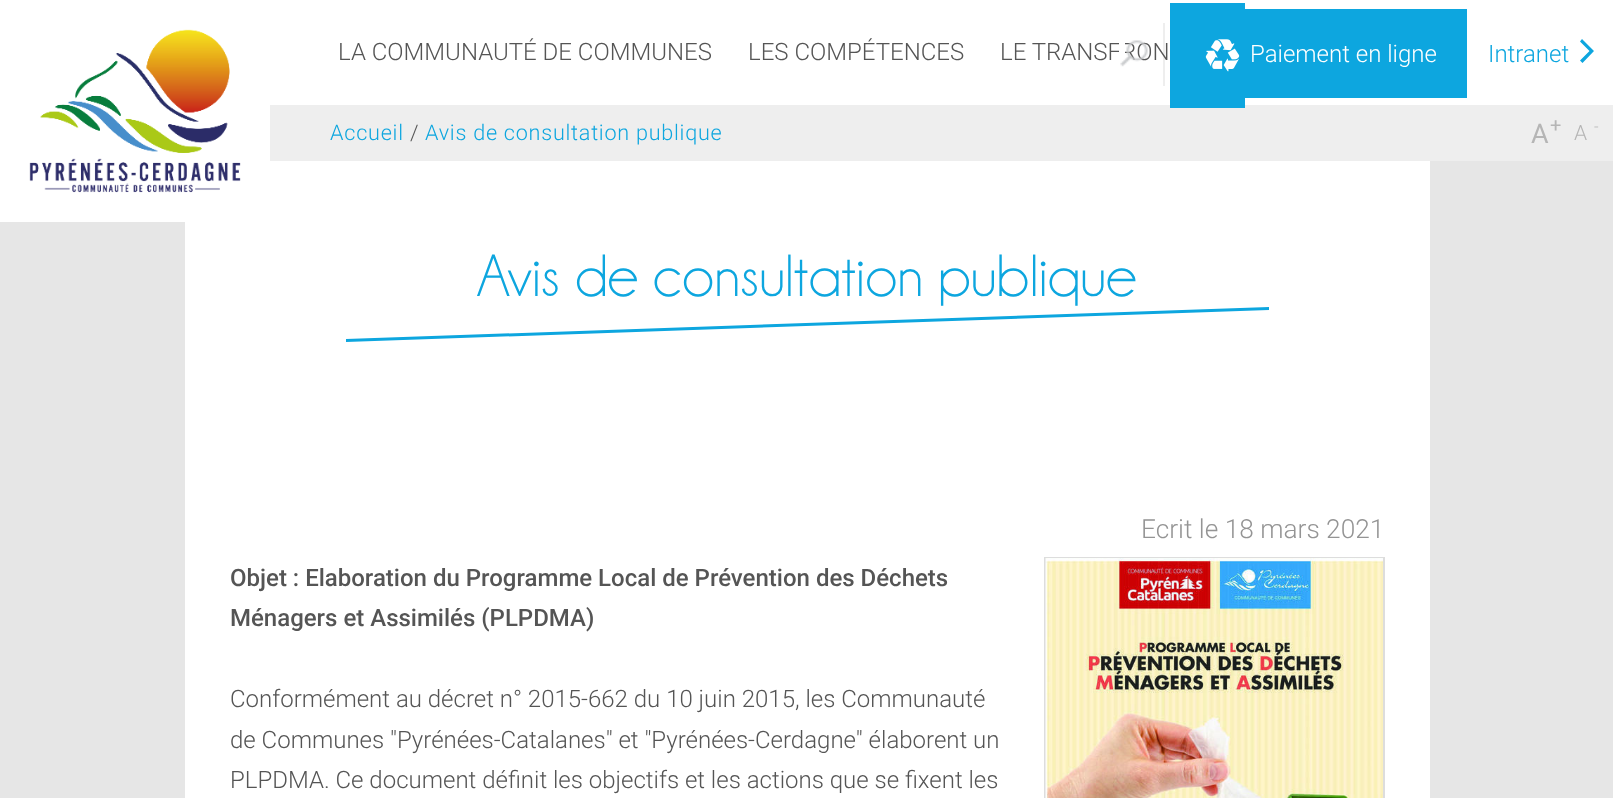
<svg xmlns="http://www.w3.org/2000/svg" width="1613" height="798">
<style>
.a{font:300 24px Roboto;fill:#555}
.b{font:300 24px Roboto;fill:#fff}
.c{font:300 24px Roboto;fill:#0da6df}
.d{font:300 21.6px Roboto;letter-spacing:0.75px;fill:#0da6df}
.e{font:300 21.6px Roboto;letter-spacing:0.75px;fill:#555}
.f{font:27px Roboto;fill:#b5b5b5}
.g{font:20px Roboto;fill:#b5b5b5}
.h{font:300 21px Roboto;fill:#b5b5b5}
.i{font:300 16px Roboto;fill:#b5b5b5}
.j{font:60px 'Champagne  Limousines';fill:#0da6df}
.k{font:300 26.25px Roboto;fill:#949494}
.l{font:500 24px Roboto;fill:#555}
</style>
<rect width="100%" height="100%" fill="#fff"/>
<path fill="#e6e6e6" d="M0 161h1613v637H0z"/>
<path fill="#fff" d="M0 161h185v61H0z"/>
<path fill="#fff" d="M185 161h1245v637H185z"/>
<image href="1.png" x="29" y="29" width="212" height="164"/>
<path fill="#5555551a" d="M1163 23h2v63H1163z"/>
<path fill="#eee" d="M270 105h1343v56H270z"/>
<path fill="#0da6df" d="M1170 3h75v105H1170z"/>
<image href="3.png" x="1205" y="39" width="35" height="33"/>
<path fill="#0da6df" d="M1245 9h222v89H1245z"/>
<path fill="#0da6df" d="M1580 41.5l2-2.5l12 12l-11.5 12l-2.5-2.5l9.5-9.5z"/>
<path fill="#0da6df" d="M346 339l923-32v3l-923 32z"/>
<path fill="none" stroke="#ddd" stroke-width="2" d="M1045 558h339v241H1045z"/>
<image href="4.png" x="1045" y="558" width="338" height="240"/>
<text class="a" x="338" y="60">LA COMMUNAUTÉ DE COMMUNES</text>
<text class="a" x="748" y="60">LES COMPÉTENCES</text>
<text class="a" x="1000" y="60">LE TRANSFRON</text>
<path fill="#fff" d="M1119 42h6v18H1119z"/>
<image href="2.png" x="1120" y="40" width="28" height="27"/>
<text class="b" x="1250" y="62">Paiement en ligne</text>
<text class="c" x="1488" y="62">Intranet</text>
<text class="d" x="330" y="140">Accueil</text>
<text class="e" x="410" y="140">/</text>
<text class="d" x="425" y="140">Avis de consultation publique</text>
<text class="f" x="1531" y="143">A</text>
<text class="g" x="1550" y="132">+</text>
<text class="h" x="1574" y="140">A</text>
<text class="i" x="1594" y="132">-</text>
<text class="j" x="477" y="296">Avis de consultation publique</text>
<text class="k" x="1141" y="538">Ecrit le 18 mars 2021</text>
<text class="l" x="230" y="586">Objet : Elaboration du Programme Local de Prévention des Déchets</text>
<text class="l" x="230" y="626">Ménagers et Assimilés (PLPDMA)</text>
<text class="a" x="230" y="707">Conformément au décret n° 2015-662 du 10 juin 2015, les Communauté</text>
<text class="a" x="230" y="748">de Communes "Pyrénées-Catalanes" et "Pyrénées-Cerdagne" élaborent un</text>
<text class="a" x="230" y="788">PLPDMA. Ce document définit les objectifs et les actions que se fixent les</text>
</svg>
